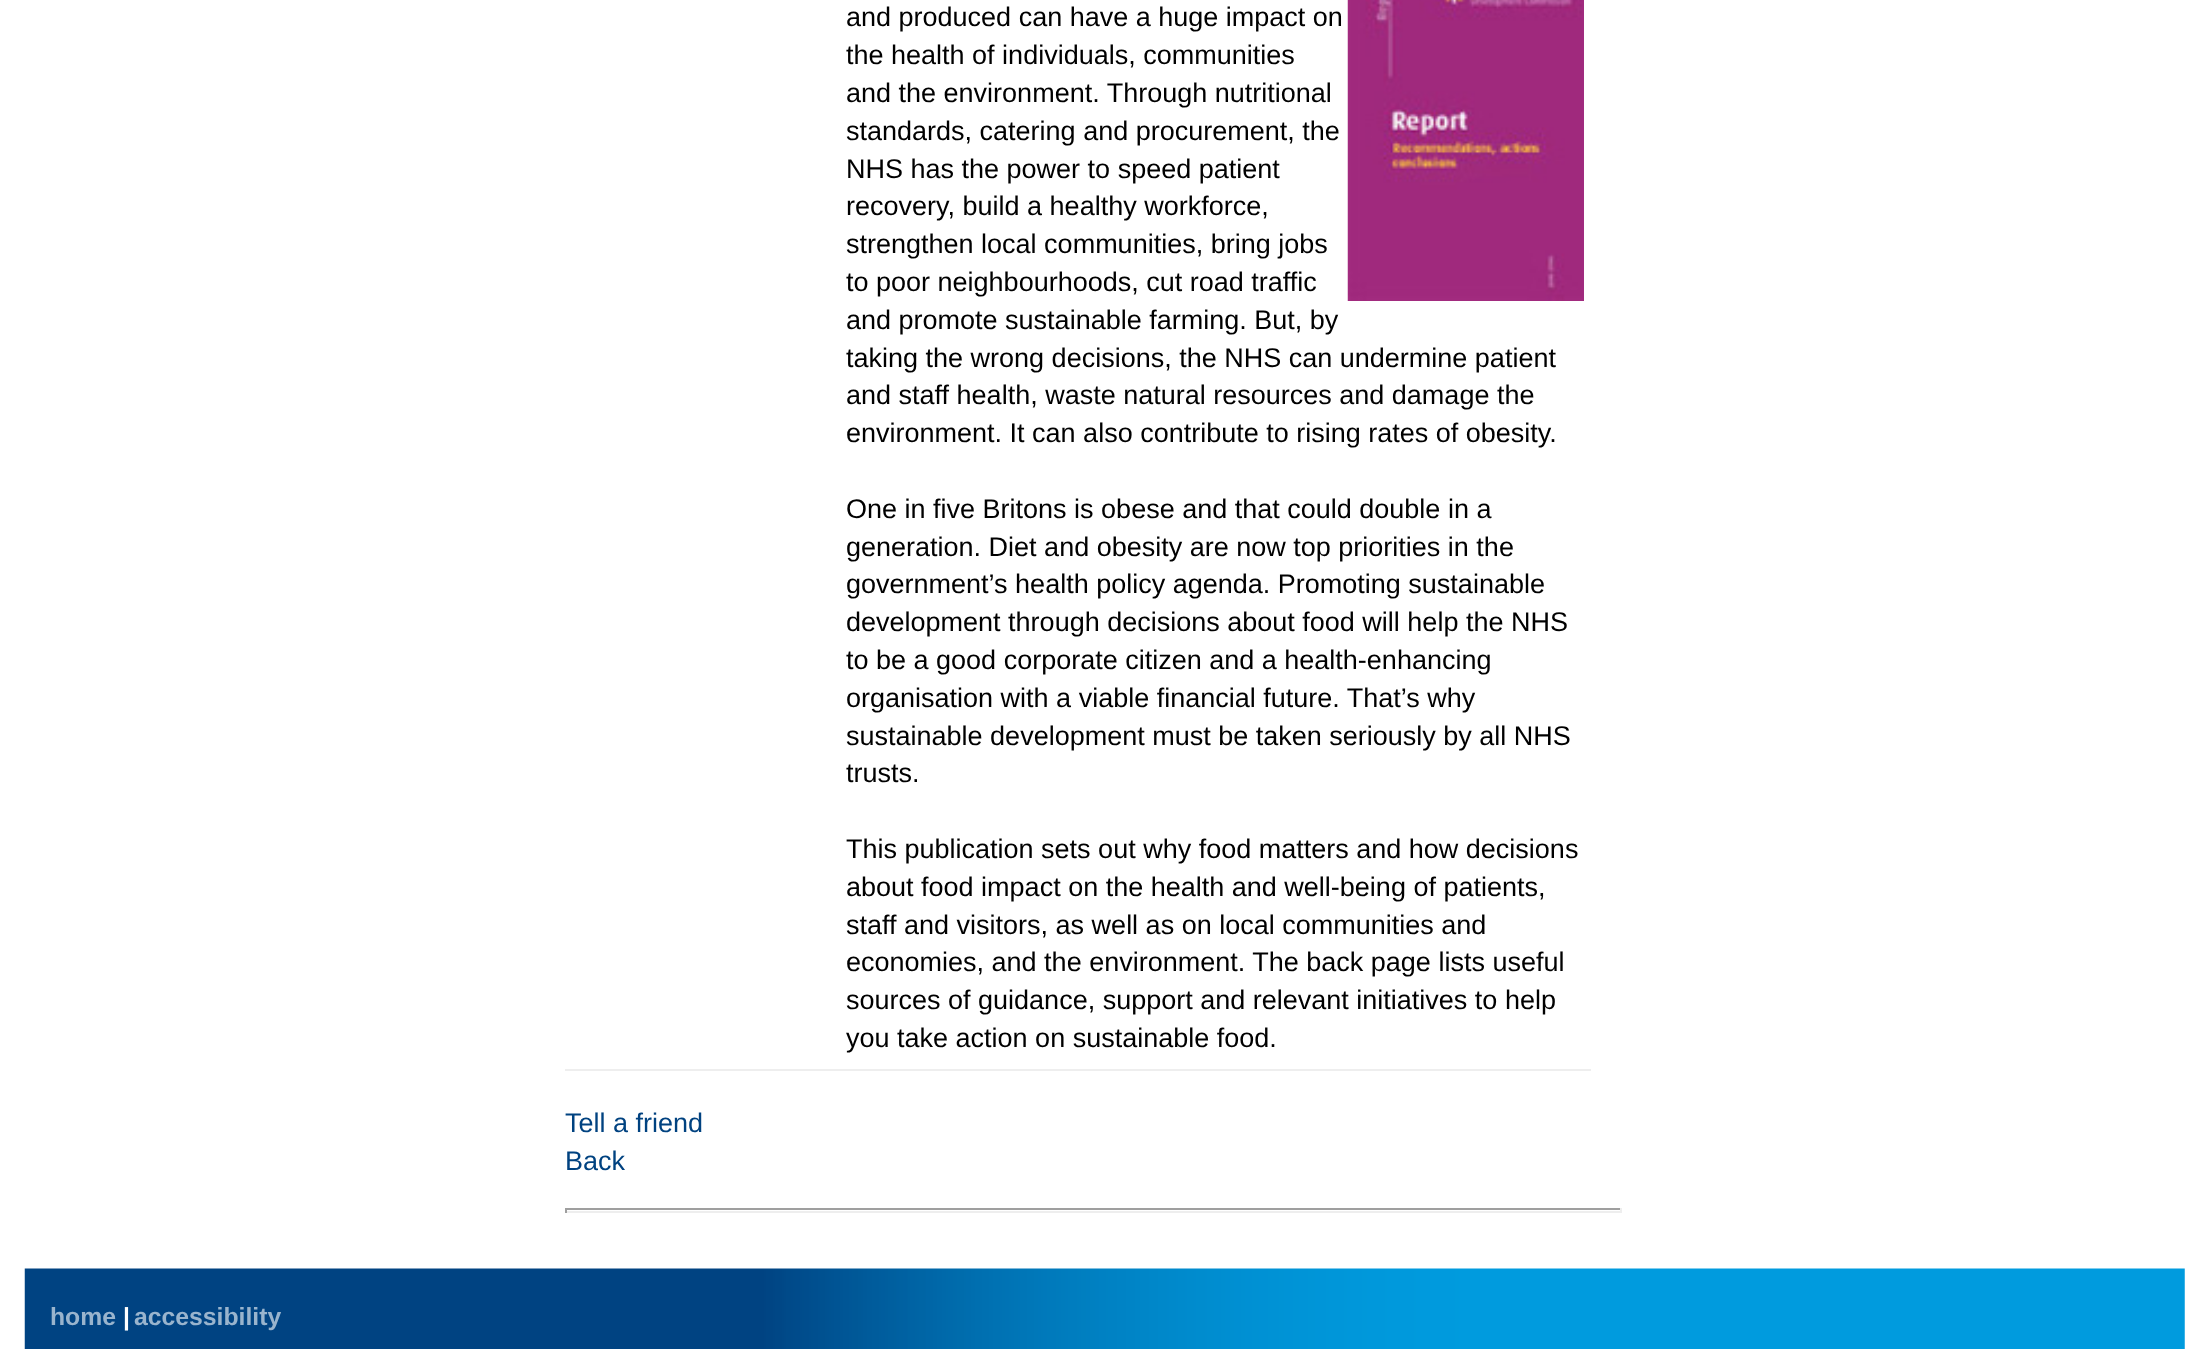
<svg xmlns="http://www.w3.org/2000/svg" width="2209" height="1349">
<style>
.a{font:27px Liberation Sans;fill:#000}
.b{font:27px Liberation Sans;fill:#004280}
.c{font:bold 24.75px Liberation Sans;fill:#99b4cd}
.d{font:bold 24.75px Liberation Sans;fill:#fff}
</style>
<rect width="100%" height="100%" fill="#fff"/>
<path fill="#eee" d="M565 1069h1026v2H565z"/>
<image href="1.png" x="1347" y="0" width="237" height="301"/>
<path fill="#9f9f9f" d="M565 1208h1057v2H565z"/>
<path fill="#eee" d="M1620 1208h2v5H1620z"/>
<path fill="#eee" d="M565 1211h1057v2H565z"/>
<path fill="#9f9f9f" d="M565 1208h2v5H565z"/>
<image href="2.png" x="24" y="1268" width="2161" height="81"/>
<text class="a" x="846" y="26">and produced can have a huge impact on</text>
<text class="a" x="846" y="64">the health of individuals, communities</text>
<text class="a" x="846" y="102">and the environment. Through nutritional</text>
<text class="a" x="846" y="140">standards, catering and procurement, the</text>
<text class="a" x="846" y="178">NHS has the power to speed patient</text>
<text class="a" x="846" y="215">recovery, build a healthy workforce,</text>
<text class="a" x="846" y="253">strengthen local communities, bring jobs</text>
<text class="a" x="846" y="291">to poor neighbourhoods, cut road traffic</text>
<text class="a" x="846" y="329">and promote sustainable farming. But, by</text>
<text class="a" x="846" y="367">taking the wrong decisions, the NHS can undermine patient</text>
<text class="a" x="846" y="404">and staff health, waste natural resources and damage the</text>
<text class="a" x="846" y="442">environment. It can also contribute to rising rates of obesity.</text>
<text class="a" x="846" y="518">One in five Britons is obese and that could double in a</text>
<text class="a" x="846" y="556">generation. Diet and obesity are now top priorities in the</text>
<text class="a" x="846" y="593">government’s health policy agenda. Promoting sustainable</text>
<text class="a" x="846" y="631">development through decisions about food will help the NHS</text>
<text class="a" x="846" y="669">to be a good corporate citizen and a health-enhancing</text>
<text class="a" x="846" y="707">organisation with a viable financial future. That’s why</text>
<text class="a" x="846" y="745">sustainable development must be taken seriously by all NHS</text>
<text class="a" x="846" y="782">trusts.</text>
<text class="a" x="846" y="858">This publication sets out why food matters and how decisions</text>
<text class="a" x="846" y="896">about food impact on the health and well-being of patients,</text>
<text class="a" x="846" y="934">staff and visitors, as well as on local communities and</text>
<text class="a" x="846" y="971">economies, and the environment. The back page lists useful</text>
<text class="a" x="846" y="1009">sources of guidance, support and relevant initiatives to help</text>
<text class="a" x="846" y="1047">you take action on sustainable food.</text>
<text class="b" x="565" y="1132">Tell a friend</text>
<text class="b" x="565" y="1170">Back</text>
<text class="c" x="50" y="1325">home</text>
<text class="d" x="123" y="1325">|</text>
<text class="c" x="134" y="1325">accessibility</text>
</svg>
